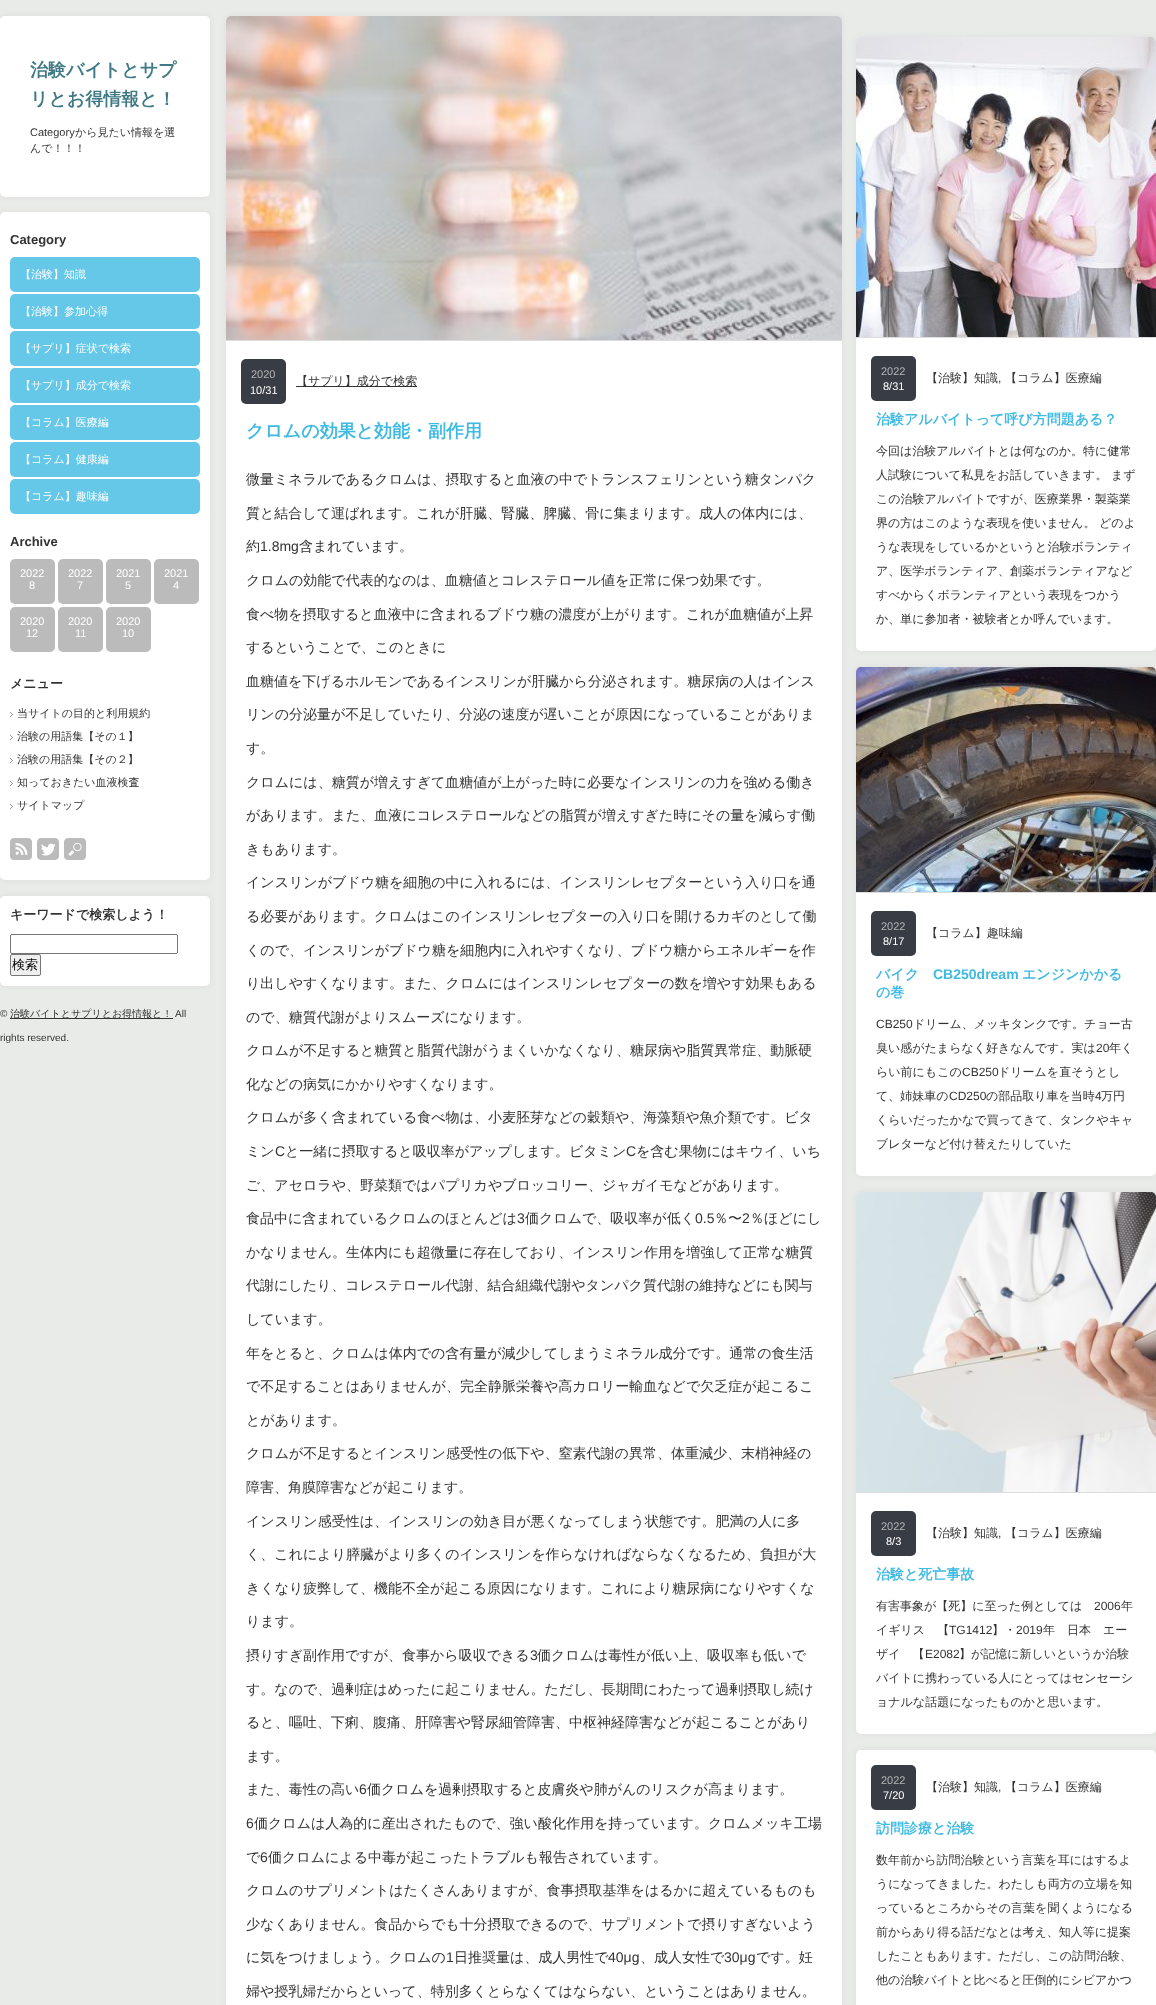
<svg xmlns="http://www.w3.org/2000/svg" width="1156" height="2005">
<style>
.a{font:bold 18px WenQuanYi Zen Hei;fill:#3f7985}
.b{font:11px Liberation Sans;fill:#333}
.c{font:500 11px WenQuanYi Zen Hei;fill:#333}
.d{font:bold 13px Liberation Sans;fill:#333}
.e{font:500 11px WenQuanYi Zen Hei;fill:#fff}
.f{font:11px Liberation Sans;fill:#fff}
.g{font:bold 13px WenQuanYi Zen Hei;fill:#333}
.h{font:500 13px WenQuanYi Zen Hei;fill:#000}
.i{font:10px Liberation Sans;fill:#333}
.j{font:500 10px WenQuanYi Zen Hei;fill:#333}
.k{font:11px Liberation Sans;fill:#b3b5b4}
.l{font:500 12px WenQuanYi Zen Hei;fill:#333}
.m{font:bold 18px WenQuanYi Zen Hei;fill:#3fbae3}
.n{font:500 14px WenQuanYi Zen Hei;fill:#333}
.o{font:14px Liberation Sans;fill:#333}
.p{font:12px Liberation Sans;fill:#333}
.q{font:bold 14px WenQuanYi Zen Hei;fill:#3fbae3}
.r{font:bold 14px Liberation Sans;fill:#3fbae3}
</style>
<rect width="100%" height="100%" fill="#e9ebe8"/>
<rect fill="#ddd" filter="blur(2.5px)" y="16" width="210" height="181" rx="5"/>
<rect fill="#fff" y="16" width="210" height="181" rx="5"/>
<rect fill="#ddd" filter="blur(2.5px)" y="212" width="210" height="668" rx="5"/>
<rect fill="#fff" y="212" width="210" height="668" rx="5"/>
<rect fill="#65c8e8" x="10" y="257" width="190" height="35" rx="5"/>
<rect fill="#65c8e8" x="10" y="294" width="190" height="35" rx="5"/>
<rect fill="#65c8e8" x="10" y="331" width="190" height="35" rx="5"/>
<rect fill="#65c8e8" x="10" y="368" width="190" height="35" rx="5"/>
<rect fill="#65c8e8" x="10" y="405" width="190" height="35" rx="5"/>
<rect fill="#65c8e8" x="10" y="442" width="190" height="35" rx="5"/>
<rect fill="#65c8e8" x="10" y="479" width="190" height="35" rx="5"/>
<rect fill="#bbb" x="10" y="559" width="45" height="45" rx="5"/>
<rect fill="#bbb" x="58" y="559" width="45" height="45" rx="5"/>
<rect fill="#bbb" x="106" y="559" width="45" height="45" rx="5"/>
<rect fill="#bbb" x="154" y="559" width="45" height="45" rx="5"/>
<rect fill="#bbb" x="10" y="607" width="45" height="45" rx="5"/>
<rect fill="#bbb" x="58" y="607" width="45" height="45" rx="5"/>
<rect fill="#bbb" x="106" y="607" width="45" height="45" rx="5"/>
<image href="1.png" x="10" y="712" width="3" height="5"/>
<image href="1.png" x="10" y="735" width="3" height="5"/>
<image href="1.png" x="10" y="758" width="3" height="5"/>
<image href="1.png" x="10" y="781" width="3" height="5"/>
<image href="1.png" x="10" y="804" width="3" height="5"/>
<image href="2.png" x="10" y="838" width="22" height="22"/>
<image href="3.png" x="37" y="838" width="22" height="22"/>
<image href="4.png" x="64" y="838" width="22" height="22"/>
<rect fill="#ddd" filter="blur(2.5px)" y="896" width="210" height="90" rx="5"/>
<rect fill="#fff" y="896" width="210" height="90" rx="5"/>
<rect fill="none" stroke="#767676" x="10.5" y="934.5" width="167" height="19" rx="1.5"/>
<rect fill="#efefef" stroke="#767676" x="10.5" y="954.5" width="30" height="21" rx="1.5"/>
<path fill="#333" d="M10 1018h163v1H10z"/>
<rect fill="#ddd" filter="blur(2.5px)" x="226" y="16" width="616" height="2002" rx="5"/>
<rect fill="#fff" x="226" y="16" width="616" height="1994" rx="5"/>
<image href="5.png" x="226" y="16" width="616" height="324"/>
<path fill="#ddd" d="M226 340h616v1H226z"/>
<rect fill="#383c45" x="241" y="359" width="45" height="45" rx="5"/>
<path fill="#333" d="M296 386h121v1H296z"/>
<rect fill="#ddd" filter="blur(2.5px)" x="856" y="37" width="300" height="614" rx="5"/>
<rect fill="#fff" x="856" y="37" width="300" height="614" rx="5"/>
<image href="6.png" x="856" y="37" width="300" height="300"/>
<path fill="#ddd" d="M856 337h300v1H856z"/>
<rect fill="#383c45" x="871" y="356" width="45" height="45" rx="5"/>
<rect fill="#ddd" filter="blur(2.5px)" x="856" y="667" width="300" height="509" rx="5"/>
<rect fill="#fff" x="856" y="667" width="300" height="509" rx="5"/>
<image href="7.png" x="856" y="667" width="300" height="225"/>
<path fill="#ddd" d="M856 892h300v1H856z"/>
<rect fill="#383c45" x="871" y="911" width="45" height="45" rx="5"/>
<rect fill="#ddd" filter="blur(2.5px)" x="856" y="1192" width="300" height="542" rx="5"/>
<rect fill="#fff" x="856" y="1192" width="300" height="542" rx="5"/>
<image href="8.png" x="856" y="1192" width="300" height="300"/>
<path fill="#ddd" d="M856 1492h300v1H856z"/>
<rect fill="#383c45" x="871" y="1511" width="45" height="45" rx="5"/>
<rect fill="#ddd" filter="blur(2.5px)" x="856" y="1750" width="300" height="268" rx="5"/>
<rect fill="#fff" x="856" y="1750" width="300" height="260" rx="5"/>
<rect fill="#383c45" x="871" y="1765" width="45" height="45" rx="5"/>
<text class="a" x="30" y="76">治験バイトとサプ</text>
<text class="a" x="30" y="105">リとお得情報と！</text>
<text class="b" x="30" y="136">Category</text>
<text class="c" x="75" y="136">から見たい情報を選</text>
<text class="c" x="30" y="152">んで！！！</text>
<text class="d" x="10" y="244">Category</text>
<text class="e" x="20" y="278">【治験】知識</text>
<text class="e" x="20" y="315">【治験】参加心得</text>
<text class="e" x="20" y="352">【サプリ】症状で検索</text>
<text class="e" x="20" y="389">【サプリ】成分で検索</text>
<text class="e" x="20" y="426">【コラム】医療編</text>
<text class="e" x="20" y="463">【コラム】健康編</text>
<text class="e" x="20" y="500">【コラム】趣味編</text>
<text class="d" x="10" y="546">Archive</text>
<text class="f" x="20" y="577">2022</text>
<text class="f" x="29" y="589">8</text>
<text class="f" x="68" y="577">2022</text>
<text class="f" x="77" y="589">7</text>
<text class="f" x="116" y="577">2021</text>
<text class="f" x="125" y="589">5</text>
<text class="f" x="164" y="577">2021</text>
<text class="f" x="173" y="589">4</text>
<text class="f" x="20" y="625">2020</text>
<text class="f" x="26" y="637">12</text>
<text class="f" x="68" y="625">2020</text>
<text class="f" x="75" y="637">11</text>
<text class="f" x="116" y="625">2020</text>
<text class="f" x="122" y="637">10</text>
<text class="g" x="10" y="688">メニュー</text>
<text class="c" x="17" y="717">当サイトの目的と利用規約</text>
<text class="c" x="17" y="740">治験の用語集【その１】</text>
<text class="c" x="17" y="763">治験の用語集【その２】</text>
<text class="c" x="17" y="786">知っておきたい血液検査</text>
<text class="c" x="17" y="809">サイトマップ</text>
<text class="g" x="10" y="919">キーワードで検索しよう！</text>
<text class="h" x="12" y="969">検索</text>
<text class="i" x="0" y="1017">©</text>
<text class="j" x="10" y="1017">治験バイトとサプリとお得情報と！</text>
<text class="i" x="175" y="1017">All</text>
<text class="i" x="0" y="1041">rights reserved.</text>
<text class="k" x="251" y="378">2020</text>
<text class="f" x="250" y="394">10/31</text>
<text class="l" x="296" y="385">【サプリ】成分で検索</text>
<text class="m" x="246" y="437">クロムの効果と効能・副作用</text>
<text class="n" x="246" y="484">微量ミネラルであるクロムは、摂取すると血液の中でトランスフェリンという糖タンパク</text>
<text class="n" x="246" y="518">質と結合して運ばれます。これが肝臓、腎臓、脾臓、骨に集まります。成人の体内には、</text>
<text class="n" x="246" y="551">約</text>
<text class="o" x="260" y="551">1.8mg</text>
<text class="n" x="299" y="551">含まれています。</text>
<text class="n" x="246" y="585">クロムの効能で代表的なのは、血糖値とコレステロール値を正常に保つ効果です。</text>
<text class="n" x="246" y="619">食べ物を摂取すると血液中に含まれるブドウ糖の濃度が上がります。これが血糖値が上昇</text>
<text class="n" x="246" y="652">するということで、このときに</text>
<text class="n" x="246" y="686">血糖値を下げるホルモンであるインスリンが肝臓から分泌されます。糖尿病の人はインス</text>
<text class="n" x="246" y="719">リンの分泌量が不足していたり、分泌の速度が遅いことが原因になっていることがありま</text>
<text class="n" x="246" y="753">す。</text>
<text class="n" x="246" y="787">クロムには、糖質が増えすぎて血糖値が上がった時に必要なインスリンの力を強める働き</text>
<text class="n" x="246" y="820">があります。また、血液にコレステロールなどの脂質が増えすぎた時にその量を減らす働</text>
<text class="n" x="246" y="854">きもあります。</text>
<text class="n" x="246" y="887">インスリンがブドウ糖を細胞の中に入れるには、インスリンレセプターという入り口を通</text>
<text class="n" x="246" y="921">る必要があります。クロムはこのインスリンレセプターの入り口を開けるカギのとして働</text>
<text class="n" x="246" y="955">くので、インスリンがブドウ糖を細胞内に入れやすくなり、ブドウ糖からエネルギーを作</text>
<text class="n" x="246" y="988">り出しやすくなります。また、クロムにはインスリンレセプターの数を増やす効果もある</text>
<text class="n" x="246" y="1022">ので、糖質代謝がよりスムーズになります。</text>
<text class="n" x="246" y="1055">クロムが不足すると糖質と脂質代謝がうまくいかなくなり、糖尿病や脂質異常症、動脈硬</text>
<text class="n" x="246" y="1089">化などの病気にかかりやすくなります。</text>
<text class="n" x="246" y="1122">クロムが多く含まれている食べ物は、小麦胚芽などの穀類や、海藻類や魚介類です。ビタ</text>
<text class="n" x="246" y="1156">ミン</text>
<text class="o" x="275" y="1156">C</text>
<text class="n" x="285" y="1156">と一緒に摂取すると吸収率がアップします。ビタミン</text>
<text class="o" x="626" y="1156">C</text>
<text class="n" x="636" y="1156">を含む果物にはキウイ、いち</text>
<text class="n" x="246" y="1190">ご、アセロラや、野菜類ではパプリカやブロッコリー、ジャガイモなどがあります。</text>
<text class="n" x="246" y="1223">食品中に含まれているクロムのほとんどは</text>
<text class="o" x="517" y="1223">3</text>
<text class="n" x="525" y="1223">価クロムで、吸収率が低く</text>
<text class="o" x="695" y="1223">0.5</text>
<text class="n" x="714" y="1223">％〜</text>
<text class="o" x="742" y="1223">2</text>
<text class="n" x="750" y="1223">％ほどにし</text>
<text class="n" x="246" y="1257">かなりません。生体内にも超微量に存在しており、インスリン作用を増強して正常な糖質</text>
<text class="n" x="246" y="1290">代謝にしたり、コレステロール代謝、結合組織代謝やタンパク質代謝の維持などにも関与</text>
<text class="n" x="246" y="1324">しています。</text>
<text class="n" x="246" y="1358">年をとると、クロムは体内での含有量が減少してしまうミネラル成分です。通常の食生活</text>
<text class="n" x="246" y="1391">で不足することはありませんが、完全静脈栄養や高カロリー輸血などで欠乏症が起こるこ</text>
<text class="n" x="246" y="1425">とがあります。</text>
<text class="n" x="246" y="1458">クロムが不足するとインスリン感受性の低下や、窒素代謝の異常、体重減少、末梢神経の</text>
<text class="n" x="246" y="1492">障害、角膜障害などが起こります。</text>
<text class="n" x="246" y="1526">インスリン感受性は、インスリンの効き目が悪くなってしまう状態です。肥満の人に多</text>
<text class="n" x="246" y="1559">く、これにより膵臓がより多くのインスリンを作らなければならなくなるため、負担が大</text>
<text class="n" x="246" y="1593">きくなり疲弊して、機能不全が起こる原因になります。これにより糖尿病になりやすくな</text>
<text class="n" x="246" y="1626">ります。</text>
<text class="n" x="246" y="1660">摂りすぎ副作用ですが、食事から吸収できる</text>
<text class="o" x="530" y="1660">3</text>
<text class="n" x="537" y="1660">価クロムは毒性が低い上、吸収率も低いで</text>
<text class="n" x="246" y="1694">す。なので、過剰症はめったに起こりません。ただし、長期間にわたって過剰摂取し続け</text>
<text class="n" x="246" y="1727">ると、嘔吐、下痢、腹痛、肝障害や腎尿細管障害、中枢神経障害などが起こることがあり</text>
<text class="n" x="246" y="1761">ます。</text>
<text class="n" x="246" y="1794">また、毒性の高い</text>
<text class="o" x="359" y="1794">6</text>
<text class="n" x="367" y="1794">価クロムを過剰摂取すると皮膚炎や肺がんのリスクが高まります。</text>
<text class="o" x="246" y="1828">6</text>
<text class="n" x="254" y="1828">価クロムは人為的に産出されたもので、強い酸化作用を持っています。クロムメッキ工場</text>
<text class="n" x="246" y="1862">で</text>
<text class="o" x="260" y="1862">6</text>
<text class="n" x="268" y="1862">価クロムによる中毒が起こったトラブルも報告されています。</text>
<text class="n" x="246" y="1895">クロムのサプリメントはたくさんありますが、食事摂取基準をはるかに超えているものも</text>
<text class="n" x="246" y="1929">少なくありません。食品からでも十分摂取できるので、サプリメントで摂りすぎないよう</text>
<text class="n" x="246" y="1962">に気をつけましょう。クロムの</text>
<text class="o" x="446" y="1962">1</text>
<text class="n" x="454" y="1962">日推奨量は、成人男性で</text>
<text class="o" x="608" y="1962">40μg</text>
<text class="n" x="640" y="1962">、成人女性で</text>
<text class="o" x="724" y="1962">30μg</text>
<text class="n" x="756" y="1962">です。妊</text>
<text class="n" x="246" y="1996">婦や授乳婦だからといって、特別多くとらなくてはならない、ということはありません。</text>
<text class="k" x="881" y="375">2022</text>
<text class="f" x="883" y="390">8/31</text>
<text class="l" x="926" y="382">【治験】知識</text>
<text class="p" x="998" y="382">,</text>
<text class="l" x="1005" y="382">【コラム】医療編</text>
<text class="q" x="876" y="424">治験アルバイトって呼び方問題ある？</text>
<text class="l" x="876" y="455">今回は治験アルバイトとは何なのか。特に健常</text>
<text class="l" x="876" y="479">人試験について私見をお話していきます。 まず</text>
<text class="l" x="876" y="503">この治験アルバイトですが、医療業界・製薬業</text>
<text class="l" x="876" y="527">界の方はこのような表現を使いません。 どのよ</text>
<text class="l" x="876" y="551">うな表現をしているかというと治験ボランティ</text>
<text class="l" x="876" y="575">ア、医学ボランティア、創薬ボランティアなど</text>
<text class="l" x="876" y="599">すべからくボランティアという表現をつかう</text>
<text class="l" x="876" y="623">か、単に参加者・被験者とか呼んでいます。</text>
<text class="k" x="881" y="930">2022</text>
<text class="f" x="883" y="945">8/17</text>
<text class="l" x="926" y="937">【コラム】趣味編</text>
<text class="q" x="876" y="979">バイク</text>
<text class="r" x="933" y="979">CB250dream</text>
<text class="q" x="1022" y="979">エンジンかかる</text>
<text class="q" x="876" y="997">の巻</text>
<text class="p" x="876" y="1028">CB250</text>
<text class="l" x="913" y="1028">ドリーム、メッキタンクです。チョー古</text>
<text class="l" x="876" y="1052">臭い感がたまらなく好きなんです。実は</text>
<text class="p" x="1096" y="1052">20</text>
<text class="l" x="1109" y="1052">年く</text>
<text class="l" x="876" y="1076">らい前にもこの</text>
<text class="p" x="962" y="1076">CB250</text>
<text class="l" x="998" y="1076">ドリームを直そうとし</text>
<text class="l" x="876" y="1100">て、姉妹車の</text>
<text class="p" x="949" y="1100">CD250</text>
<text class="l" x="986" y="1100">の部品取り車を当時</text>
<text class="p" x="1095" y="1100">4</text>
<text class="l" x="1101" y="1100">万円</text>
<text class="l" x="876" y="1124">くらいだったかなで買ってきて、タンクやキャ</text>
<text class="l" x="876" y="1148">ブレターなど付け替えたりしていた</text>
<text class="k" x="881" y="1530">2022</text>
<text class="f" x="886" y="1545">8/3</text>
<text class="l" x="926" y="1537">【治験】知識</text>
<text class="p" x="998" y="1537">,</text>
<text class="l" x="1005" y="1537">【コラム】医療編</text>
<text class="q" x="876" y="1579">治験と死亡事故</text>
<text class="l" x="876" y="1610">有害事象が【死】に至った例としては</text>
<text class="p" x="1094" y="1610">2006</text>
<text class="l" x="1121" y="1610">年</text>
<text class="l" x="876" y="1634">イギリス　【</text>
<text class="p" x="949" y="1634">TG1412</text>
<text class="l" x="992" y="1634">】・</text>
<text class="p" x="1016" y="1634">2019</text>
<text class="l" x="1043" y="1634">年　日本　エー</text>
<text class="l" x="876" y="1658">ザイ　【</text>
<text class="p" x="925" y="1658">E2082</text>
<text class="l" x="959" y="1658">】が記憶に新しいというか治験</text>
<text class="l" x="876" y="1682">バイトに携わっている人にとってはセンセーシ</text>
<text class="l" x="876" y="1706">ョナルな話題になったものかと思います。</text>
<text class="k" x="881" y="1784">2022</text>
<text class="f" x="883" y="1799">7/20</text>
<text class="l" x="926" y="1791">【治験】知識</text>
<text class="p" x="998" y="1791">,</text>
<text class="l" x="1005" y="1791">【コラム】医療編</text>
<text class="q" x="876" y="1833">訪問診療と治験</text>
<text class="l" x="876" y="1864">数年前から訪問治験という言葉を耳にはするよ</text>
<text class="l" x="876" y="1888">うになってきました。わたしも両方の立場を知</text>
<text class="l" x="876" y="1912">っているところからその言葉を聞くようになる</text>
<text class="l" x="876" y="1936">前からあり得る話だなとは考え、知人等に提案</text>
<text class="l" x="876" y="1960">したこともあります。ただし、この訪問治験、</text>
<text class="l" x="876" y="1984">他の治験バイトと比べると圧倒的にシビアかつ</text>
</svg>
